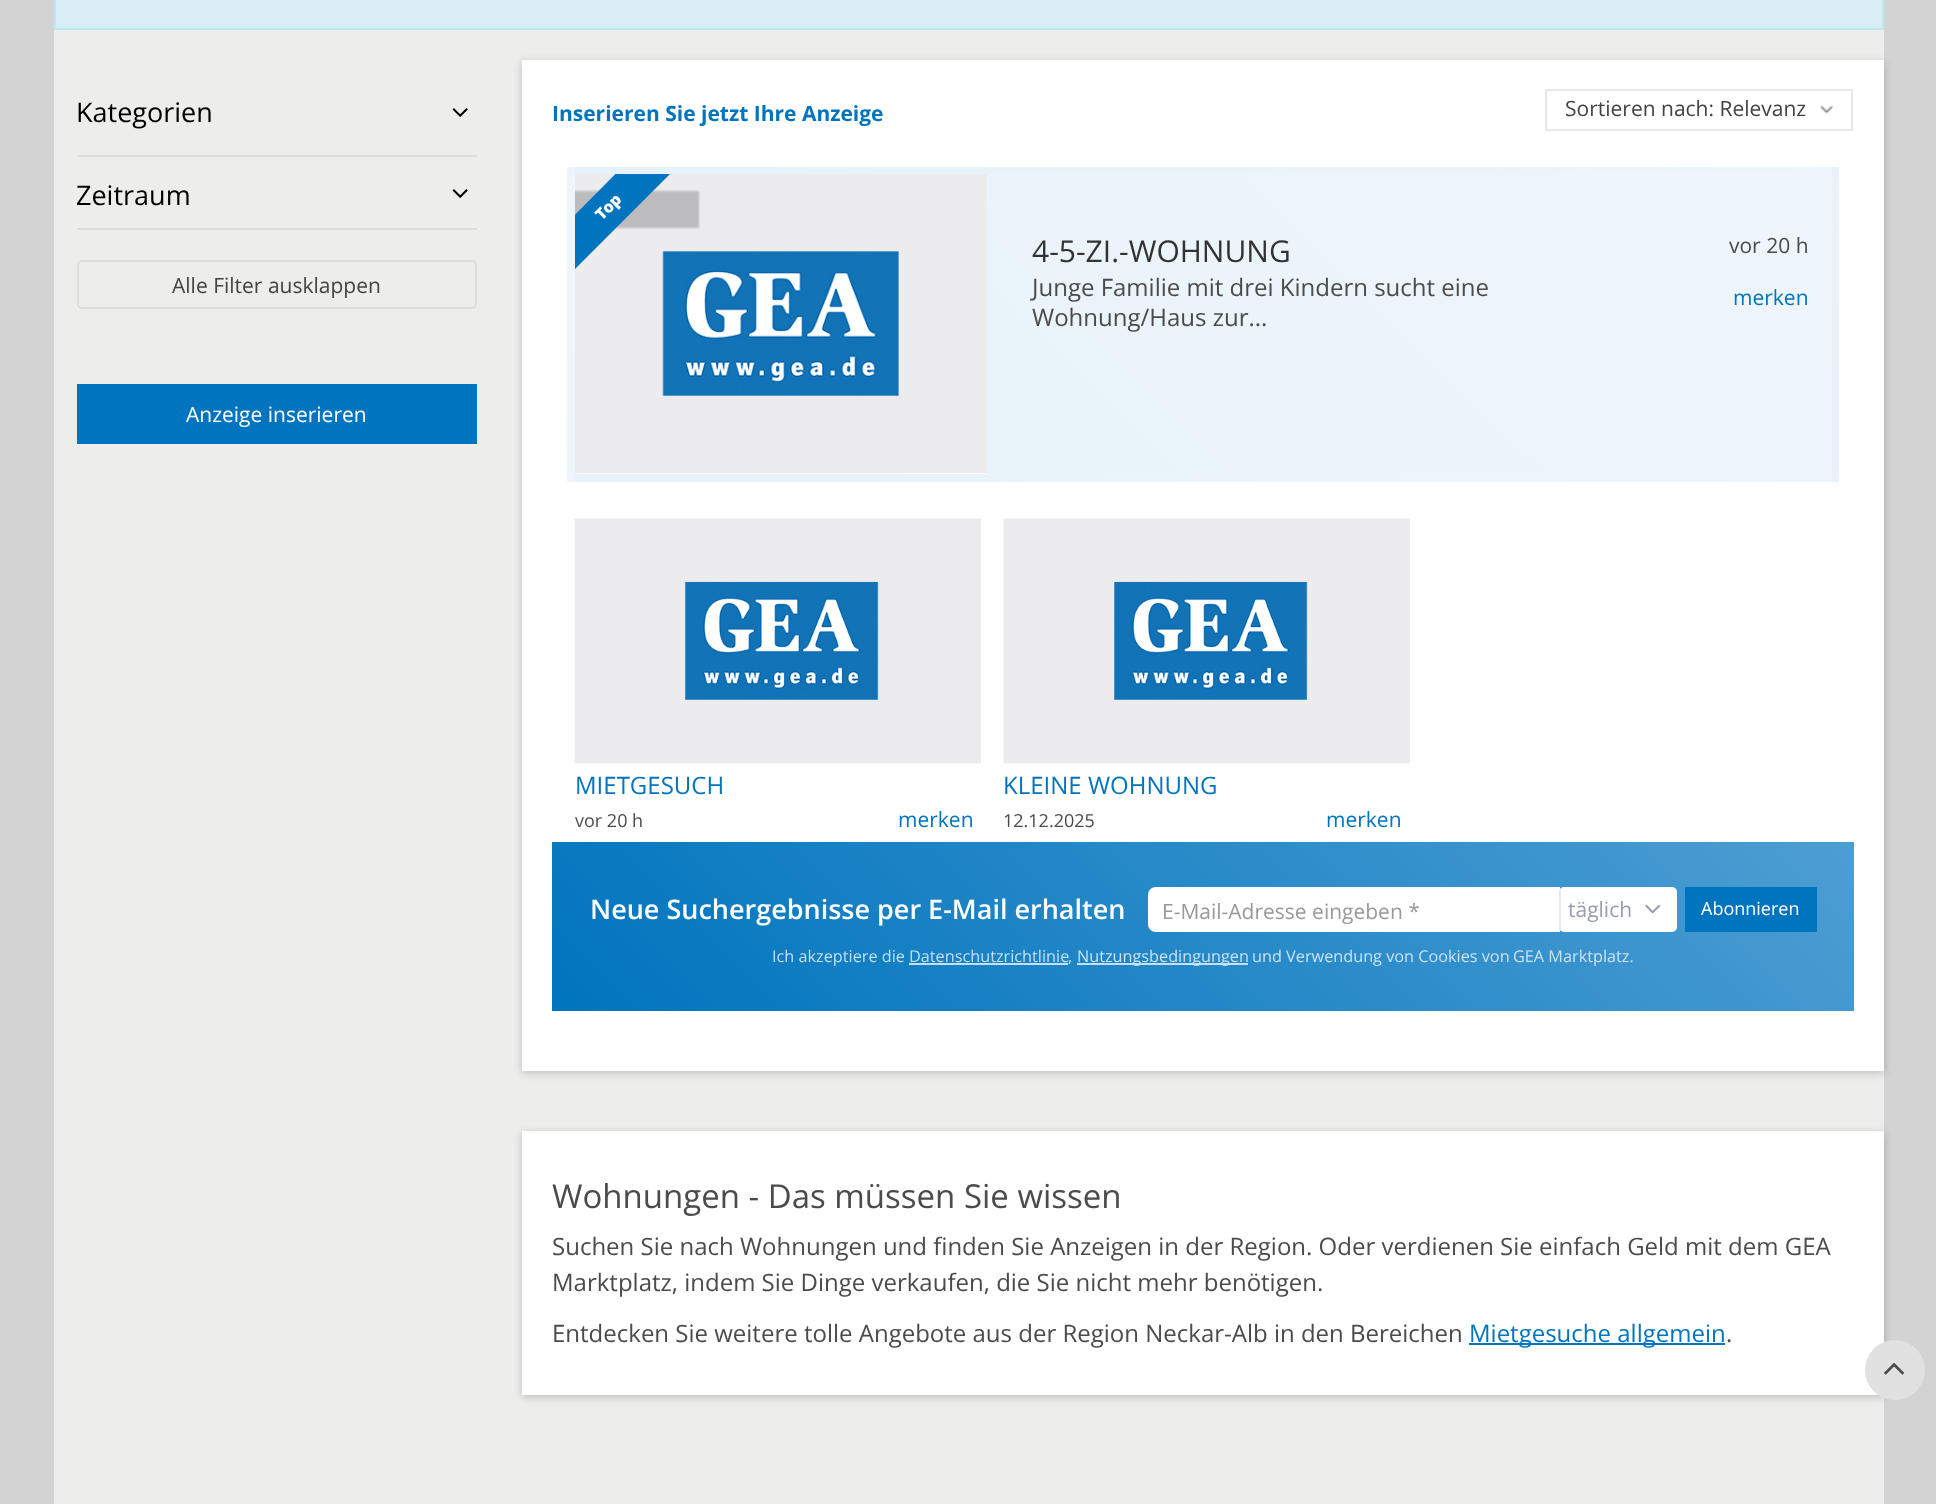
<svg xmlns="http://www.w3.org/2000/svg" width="1936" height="1504">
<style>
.a{font:27px Open Sans;fill:#000}
.b{font:21px Open Sans;fill:#434343}
.c{font:21px Open Sans;fill:#fff}
.d{font:bold 21px Open Sans;fill:#0074be}
.e{font:800 16px Open Sans;letter-spacing:-0.5px;fill:#fff}
.f{font:30px Open Sans;fill:#333}
.g{font:24px Open Sans;fill:#4b4b4b}
.h{font:21px Open Sans;fill:#4b4b4b}
.i{font:21px Open Sans;fill:#0074be}
.j{font:24px Open Sans;fill:#0074be}
.k{font:18px Open Sans;fill:#4b4b4b}
.l{font:600 27px Open Sans;fill:#fff}
.m{font:21px Open Sans;fill:#999}
.n{font:21px Open Sans;fill:#989dac}
.o{font:18px Open Sans;fill:#fff}
.p{font:16.25px Open Sans;fill:#c4dff0}
.q{font:16.25px Open Sans;fill:#cae2f1}
.r{font:33px Open Sans;fill:#4b4b4b}
</style>
<defs>
<linearGradient id="g1" gradientUnits="userSpaceOnUse" x1="-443" y1="413" x2="335" y2="-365"><stop offset="0" stop-color="#e6f1f9"/><stop offset="1" stop-color="#eef6fb"/></linearGradient>
<linearGradient id="g2" gradientUnits="userSpaceOnUse" x1="814" y1="413" x2="1592" y2="-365"><stop offset="0" stop-color="#e6f1f9"/><stop offset="1" stop-color="#eef6fb"/></linearGradient>
<linearGradient id="g3" gradientUnits="userSpaceOnUse" x1="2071" y1="413" x2="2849" y2="-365"><stop offset="0" stop-color="#e6f1f9"/><stop offset="1" stop-color="#eef6fb"/></linearGradient>
<linearGradient id="g4" gradientUnits="userSpaceOnUse" x1="-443" y1="713" x2="335" y2="-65"><stop offset="0" stop-color="#e6f1f9"/><stop offset="1" stop-color="#eef6fb"/></linearGradient>
<linearGradient id="g5" gradientUnits="userSpaceOnUse" x1="814" y1="713" x2="1592" y2="-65"><stop offset="0" stop-color="#e6f2f9"/><stop offset="1" stop-color="#eff6fb"/></linearGradient>
<linearGradient id="g6" gradientUnits="userSpaceOnUse" x1="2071" y1="713" x2="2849" y2="-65"><stop offset="0" stop-color="#e6f1f9"/><stop offset="1" stop-color="#eef6fb"/></linearGradient>
<linearGradient id="g7" gradientUnits="userSpaceOnUse" x1="-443" y1="1013" x2="335" y2="235"><stop offset="0" stop-color="#e6f1f9"/><stop offset="1" stop-color="#eef6fb"/></linearGradient>
<linearGradient id="g8" gradientUnits="userSpaceOnUse" x1="814" y1="1013" x2="1592" y2="235"><stop offset="0" stop-color="#e6f1f9"/><stop offset="1" stop-color="#eef6fb"/></linearGradient>
<linearGradient id="g9" gradientUnits="userSpaceOnUse" x1="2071" y1="1013" x2="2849" y2="235"><stop offset="0" stop-color="#e6f1f9"/><stop offset="1" stop-color="#eef6fb"/></linearGradient>
<clipPath id="clip1"><path d="M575 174h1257v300H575z"/></clipPath>
<clipPath id="clip2"><path d="M575 174h1257v300H575z"/></clipPath>
<linearGradient id="g10" gradientUnits="userSpaceOnUse" x1="835" y1="1294" x2="1571" y2="558"><stop offset="0" stop-color="#0074be"/><stop offset="1" stop-color="#4d9ed2"/></linearGradient>
<linearGradient id="g11" gradientUnits="userSpaceOnUse" x1="835" y1="1294" x2="1571" y2="558"><stop offset="0" stop-color="#bfdcef"/><stop offset="1" stop-color="#d3e7f4"/></linearGradient>
</defs>
<rect width="100%" height="100%" fill="#d3d3d4"/>
<path fill="#ededec" d="M54 30h1830v1474H54z"/>
<path fill="#d9edf7" stroke="#bce8f1" stroke-width="2" d="M55 -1h1828v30H55z"/>
<image href="1.png" x="452" y="108" width="16" height="9"/>
<path fill="#ddd" d="M77 155h400v2H77z"/>
<path fill="#ddd" d="M77 228h400v2H77z"/>
<image href="1.png" x="452" y="189" width="16" height="9"/>
<rect fill="none" stroke="#ddd" stroke-width="2" x="78" y="261" width="398" height="47" rx="4"/>
<path fill="#0074be" d="M77 384h400v60H77z"/>
<path fill="#00000033" filter="blur(4px)" d="M522 62h1362v1011H522z"/>
<path fill="#fff" d="M522 60h1362v1011H522z"/>
<image href="2.png" x="1820" y="105" width="14" height="9"/>
<path fill="none" stroke="#e8e8e8" stroke-width="2" d="M1546 90h306v40H1546z"/>
<path fill="url(#g1)" d="M567 167h8v7H567z"/>
<path fill="url(#g2)" d="M575 167h1257v7H575z"/>
<path fill="url(#g3)" d="M1832 167h7v7H1832z"/>
<path fill="url(#g4)" d="M567 174h8v300H567z"/>
<path fill="url(#g5)" d="M987 174h845v300H987z"/>
<path fill="url(#g6)" d="M1832 174h7v300H1832z"/>
<path fill="url(#g7)" d="M567 474h8v8H567z"/>
<path fill="url(#g8)" d="M575 474h1257v8H575z"/>
<path fill="url(#g9)" d="M1832 474h7v8H1832z"/>
<image href="3.png" x="575" y="174" width="412" height="300"/>
<g clip-path="url(#clip1)">
<path fill="#00000033" filter="blur(1px)" d="M519 191h180v37H519z"/>
</g>
<g clip-path="url(#clip2)">
<path fill="#0074be" d="M532 258l127-128l27 28l-127 127z"/>
</g>
<path fill="#f8f8f8" d="M575 763h406v1H575z"/>
<image href="4.png" x="574" y="518" width="407" height="245"/>
<path fill="#f8f8f8" d="M1004 763h406v1H1004z"/>
<image href="4.png" x="1003" y="518" width="407" height="245"/>
<path fill="url(#g10)" d="M552 842h1302v169H552z"/>
<path fill="url(#g11)" d="M1077 963h171v2H1077z"/>
<path fill="url(#g11)" d="M909 963h159v2H909z"/>
<path fill="#fff" d="M1156 887h404v45h-404c-4.5 0-8-3.5-8-8v-29c0-4.5 3.5-8 8-8z"/>
<rect fill="#fff" x="1559" y="887" width="118" height="45" rx="5"/>
<path fill="#e8e8e8" d="M1559 890h2v40H1559z"/>
<image href="5.png" x="1645" y="904" width="16" height="10"/>
<path fill="#0074be" d="M1685 887h132v45H1685z"/>
<path fill="#00000033" filter="blur(4px)" d="M522 1133h1362v264H522z"/>
<path fill="#fff" d="M522 1131h1362v264H522z"/>
<path fill="#0074be" d="M1469 1343h256v2H1469z"/>
<circle fill="#e1e1e1" cx="1895" cy="1370" r="30"/>
<image href="6.png" x="1884" y="1363" width="20" height="12"/>
<text class="a" x="76" y="122">Kategorien</text>
<text class="a" x="76" y="205">Zeitraum</text>
<text class="b" x="172" y="293">Alle Filter ausklappen</text>
<text class="c" x="186" y="422">Anzeige inserieren</text>
<text class="d" x="552" y="121">Inserieren Sie jetzt Ihre Anzeige</text>
<text class="b" x="1565" y="116">Sortieren nach: Relevanz</text>
<text class="e" x="602" y="221" transform="rotate(-45 602 221)">Top</text>
<text class="f" x="1032" y="262">4-5-ZI.-WOHNUNG</text>
<text class="g" x="1032" y="296">Junge Familie mit drei Kindern sucht eine</text>
<text class="g" x="1032" y="326">Wohnung/Haus zur...</text>
<text class="h" x="1729" y="253">vor 20 h</text>
<text class="i" x="1733" y="305">merken</text>
<text class="j" x="575" y="794">MIETGESUCH</text>
<text class="k" x="575" y="827">vor 20 h</text>
<text class="i" x="898" y="827">merken</text>
<text class="j" x="1003" y="794">KLEINE WOHNUNG</text>
<text class="k" x="1003" y="827">12.12.2025</text>
<text class="i" x="1326" y="827">merken</text>
<text class="l" x="590" y="919">Neue Suchergebnisse per E-Mail erhalten</text>
<text class="m" x="1162" y="919">E-Mail-Adresse eingeben *</text>
<text class="n" x="1568" y="917">täglich</text>
<text class="o" x="1701" y="915">Abonnieren</text>
<text class="p" x="772" y="962">Ich akzeptiere die</text>
<text class="p" x="909" y="962">Datenschutzrichtlinie</text>
<text class="p" x="1068" y="962">,</text>
<text class="q" x="1077" y="962">Nutzungsbedingungen</text>
<text class="q" x="1252" y="962">und Verwendung von Cookies von</text>
<text class="q" x="1513" y="962">GEA Marktplatz.</text>
<text class="r" x="552" y="1208">Wohnungen - Das müssen Sie wissen</text>
<text class="g" x="552" y="1255">Suchen Sie nach Wohnungen und finden Sie Anzeigen in der Region. Oder verdienen Sie einfach Geld mit dem GEA</text>
<text class="g" x="552" y="1291">Marktplatz, indem Sie Dinge verkaufen, die Sie nicht mehr benötigen.</text>
<text class="g" x="552" y="1342">Entdecken Sie weitere tolle Angebote aus der Region Neckar-Alb in den Bereichen</text>
<text class="j" x="1469" y="1342">Mietgesuche allgemein</text>
<text class="g" x="1726" y="1342">.</text>
</svg>
